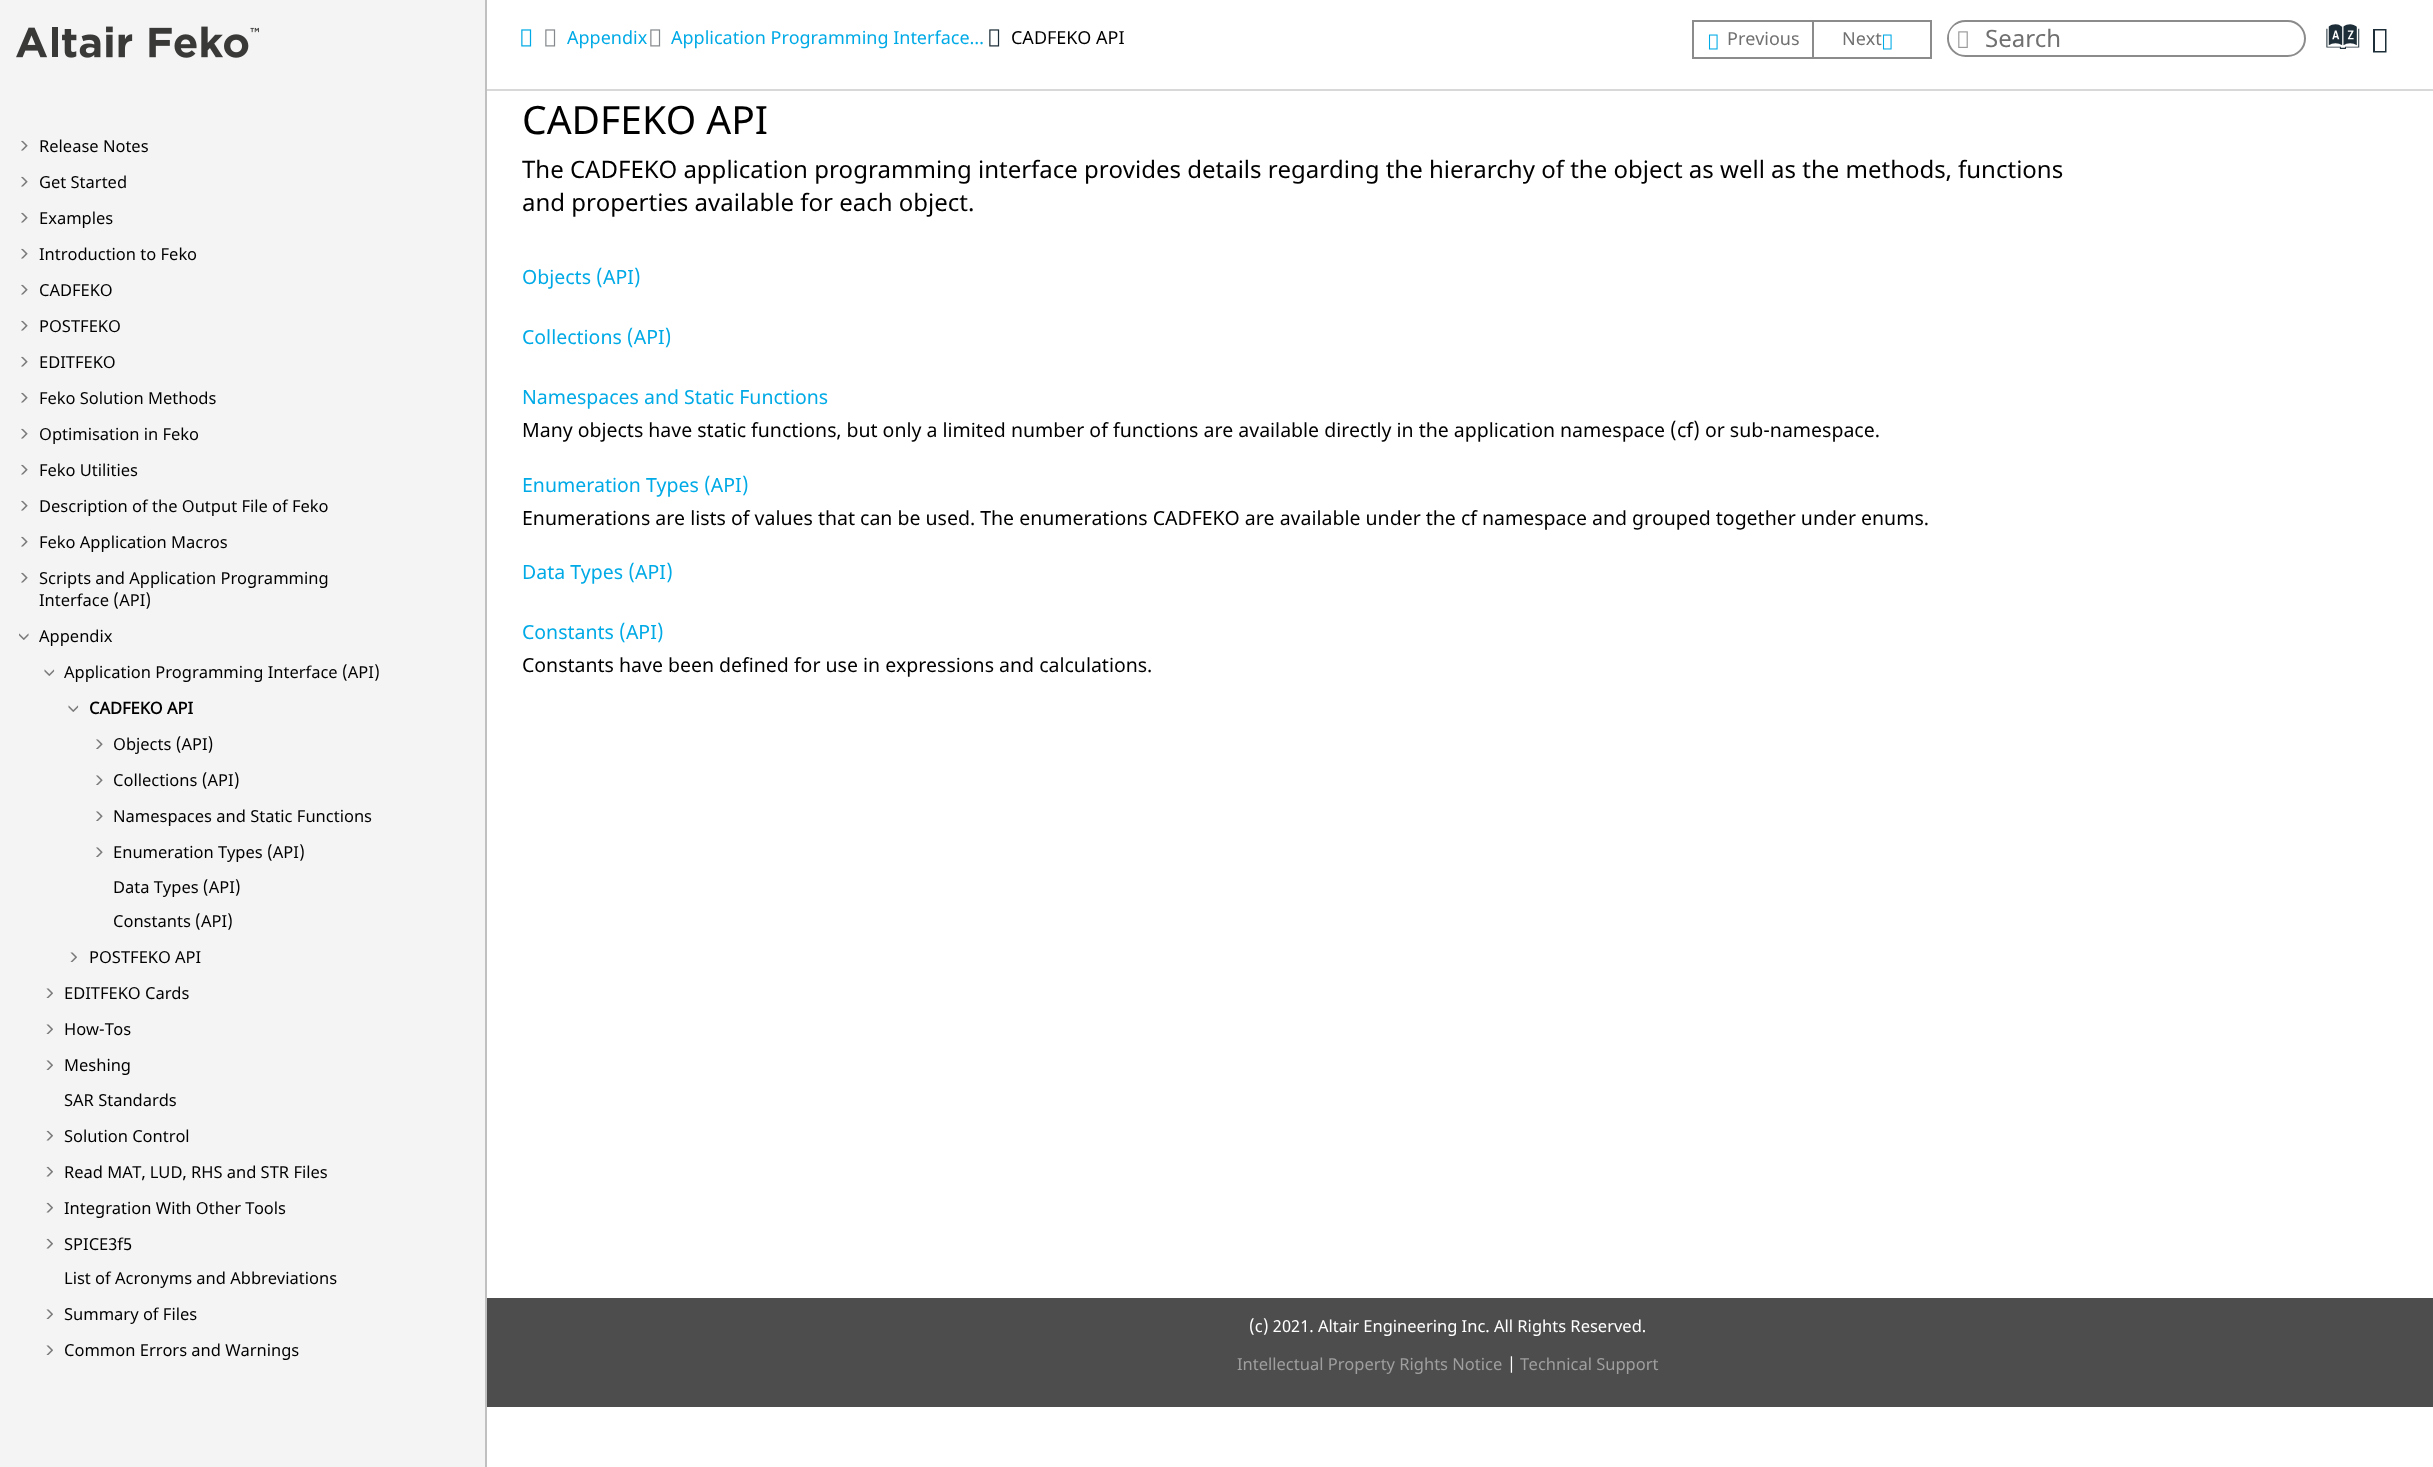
<svg xmlns="http://www.w3.org/2000/svg" width="2433" height="1467">
<style>
.a{font:16.5px Noto Sans;fill:#000}
.b{font:bold 16.5px Noto Sans;fill:#000}
.c{font:18px Noto Sans;fill:#00aae6}
.d{font:18px Noto Sans;fill:#000}
.e{font:18px Noto Sans;fill:#707070}
.f{font:24px Noto Sans;fill:#707070}
.g{font:35px Oxygen;fill:#1d2e38}
.h{font:39px Noto Sans;fill:#000}
.i{font:24px Noto Sans;fill:#000}
.j{font:19.5px Noto Sans;fill:#00aae6}
.k{font:19.5px Noto Sans;fill:#000}
.l{font:16.5px Noto Sans;fill:#fff}
.m{font:16.5px Noto Sans;fill:#9f9f9f}
</style>
<rect width="100%" height="100%" fill="#fff"/>
<path fill="#f4f4f4" d="M0 0h485v1467H0z"/>
<path fill="#c0c0c0" d="M485 0h2v1467H485z"/>
<image href="1.png" x="16" y="26" width="243" height="32"/>
<image href="2.png" x="21" y="140" width="7" height="11"/>
<image href="2.png" x="21" y="176" width="7" height="11"/>
<image href="2.png" x="21" y="212" width="7" height="11"/>
<image href="2.png" x="21" y="248" width="7" height="11"/>
<image href="2.png" x="21" y="284" width="7" height="11"/>
<image href="2.png" x="21" y="320" width="7" height="11"/>
<image href="2.png" x="21" y="356" width="7" height="11"/>
<image href="2.png" x="21" y="392" width="7" height="11"/>
<image href="2.png" x="21" y="428" width="7" height="11"/>
<image href="2.png" x="21" y="464" width="7" height="11"/>
<image href="2.png" x="21" y="500" width="7" height="11"/>
<image href="2.png" x="21" y="536" width="7" height="11"/>
<image href="2.png" x="21" y="572" width="7" height="11"/>
<image href="3.png" x="19" y="633" width="10" height="7"/>
<image href="4.png" x="44" y="669" width="11" height="7"/>
<image href="4.png" x="68" y="705" width="11" height="7"/>
<image href="5.png" x="96" y="739" width="7" height="10"/>
<image href="5.png" x="96" y="775" width="7" height="10"/>
<image href="5.png" x="96" y="811" width="7" height="10"/>
<image href="5.png" x="96" y="847" width="7" height="10"/>
<image href="6.png" x="70" y="952" width="7" height="10"/>
<image href="6.png" x="46" y="988" width="7" height="10"/>
<image href="6.png" x="46" y="1024" width="7" height="10"/>
<image href="6.png" x="46" y="1060" width="7" height="10"/>
<image href="7.png" x="46" y="1130" width="7" height="11"/>
<image href="7.png" x="46" y="1166" width="7" height="11"/>
<image href="7.png" x="46" y="1202" width="7" height="11"/>
<image href="7.png" x="46" y="1238" width="7" height="11"/>
<image href="6.png" x="46" y="1309" width="7" height="10"/>
<image href="6.png" x="46" y="1345" width="7" height="10"/>
<path fill="#d8d8d8" d="M487 89h1946v2H487z"/>
<image href="8.png" x="521" y="29" width="11" height="18"/>
<image href="9.png" x="545" y="29" width="11" height="18"/>
<image href="9.png" x="650" y="29" width="11" height="18"/>
<image href="10.png" x="989" y="29" width="11" height="18"/>
<path fill="#8b8b8b" d="M1692 20h120v2H1692z"/>
<path fill="#8b8b8b" d="M1692 57h120v2H1692z"/>
<path fill="#8b8b8b" d="M1692 20h2v39H1692z"/>
<image href="11.png" x="1708" y="34" width="10" height="16"/>
<path fill="none" stroke="#8b8b8b" stroke-width="2" d="M1813 21h118v37H1813z"/>
<image href="11.png" x="1882" y="34" width="10" height="16"/>
<rect fill="none" stroke="#8b8b8b" stroke-width="2" x="1948" y="21" width="357" height="35" rx="17.5"/>
<rect fill="#fff" x="1949" y="23" width="30" height="28" rx="14"/>
<image href="12.png" x="1958" y="31" width="10" height="17"/>
<path fill="#1d2e38" d="M2373 52.5v-23.5h13.5v23.5zm2-1.5h10v-20.5h-10z"/>
<path fill="#4d4d4d" d="M487 1298h1946v109H487z"/>
<text class="a" x="39" y="152">Release Notes</text>
<text class="a" x="39" y="188">Get Started</text>
<text class="a" x="39" y="224">Examples</text>
<text class="a" x="39" y="260">Introduction to Feko</text>
<text class="a" x="39" y="296">CADFEKO</text>
<text class="a" x="39" y="332">POSTFEKO</text>
<text class="a" x="39" y="368">EDITFEKO</text>
<text class="a" x="39" y="404">Feko Solution Methods</text>
<text class="a" x="39" y="440">Optimisation in Feko</text>
<text class="a" x="39" y="476">Feko Utilities</text>
<text class="a" x="39" y="512">Description of the Output File of Feko</text>
<text class="a" x="39" y="548">Feko Application Macros</text>
<text class="a" x="39" y="584">Scripts and Application Programming</text>
<text class="a" x="39" y="606">Interface (API)</text>
<text class="a" x="39" y="642">Appendix</text>
<text class="a" x="64" y="678">Application Programming Interface (API)</text>
<text class="b" x="89" y="714">CADFEKO API</text>
<text class="a" x="113" y="750">Objects (API)</text>
<text class="a" x="113" y="786">Collections (API)</text>
<text class="a" x="113" y="822">Namespaces and Static Functions</text>
<text class="a" x="113" y="858">Enumeration Types (API)</text>
<text class="a" x="113" y="893">Data Types (API)</text>
<text class="a" x="113" y="927">Constants (API)</text>
<text class="a" x="89" y="963">POSTFEKO API</text>
<text class="a" x="64" y="999">EDITFEKO Cards</text>
<text class="a" x="64" y="1035">How-Tos</text>
<text class="a" x="64" y="1071">Meshing</text>
<text class="a" x="64" y="1106">SAR Standards</text>
<text class="a" x="64" y="1142">Solution Control</text>
<text class="a" x="64" y="1178">Read MAT, LUD, RHS and STR Files</text>
<text class="a" x="64" y="1214">Integration With Other Tools</text>
<text class="a" x="64" y="1250">SPICE3f5</text>
<text class="a" x="64" y="1284">List of Acronyms and Abbreviations</text>
<text class="a" x="64" y="1320">Summary of Files</text>
<text class="a" x="64" y="1356">Common Errors and Warnings</text>
<text class="c" x="567" y="44">Appendix</text>
<text class="c" x="671" y="44">Application Programming Interface…</text>
<text class="d" x="1011" y="44">CADFEKO</text>
<text class="d" x="1096" y="44">API</text>
<text class="e" x="1727" y="45">Previous</text>
<text class="e" x="1842" y="45">Next</text>
<text class="f" x="1985" y="47">Search</text>
<text class="g" x="2330" y="53">a</text>
<text class="h" x="522" y="134">CADFEKO API</text>
<text class="i" x="522" y="178">The CADFEKO application programming interface provides details regarding the hierarchy of the object as well as the methods, functions</text>
<text class="i" x="522" y="211">and properties available for each object.</text>
<text class="j" x="522" y="284">Objects (API)</text>
<text class="j" x="522" y="344">Collections (API)</text>
<text class="j" x="522" y="404">Namespaces and Static Functions</text>
<text class="k" x="522" y="437">Many objects have static functions, but only a limited number of functions are available directly in the application namespace (cf) or sub-namespace.</text>
<text class="j" x="522" y="492">Enumeration Types (API)</text>
<text class="k" x="522" y="525">Enumerations are lists of values that can be used. The enumerations CADFEKO are available under the cf namespace and grouped together under enums.</text>
<text class="j" x="522" y="579">Data Types (API)</text>
<text class="j" x="522" y="639">Constants (API)</text>
<text class="k" x="522" y="672">Constants have been defined for use in expressions and calculations.</text>
<text class="l" x="1249" y="1332">(c) 2021. Altair Engineering Inc. All Rights Reserved.</text>
<text class="m" x="1237" y="1370">Intellectual Property Rights Notice</text>
<text class="l" x="1507" y="1370">|</text>
<text class="m" x="1520" y="1370">Technical Support</text>
</svg>
